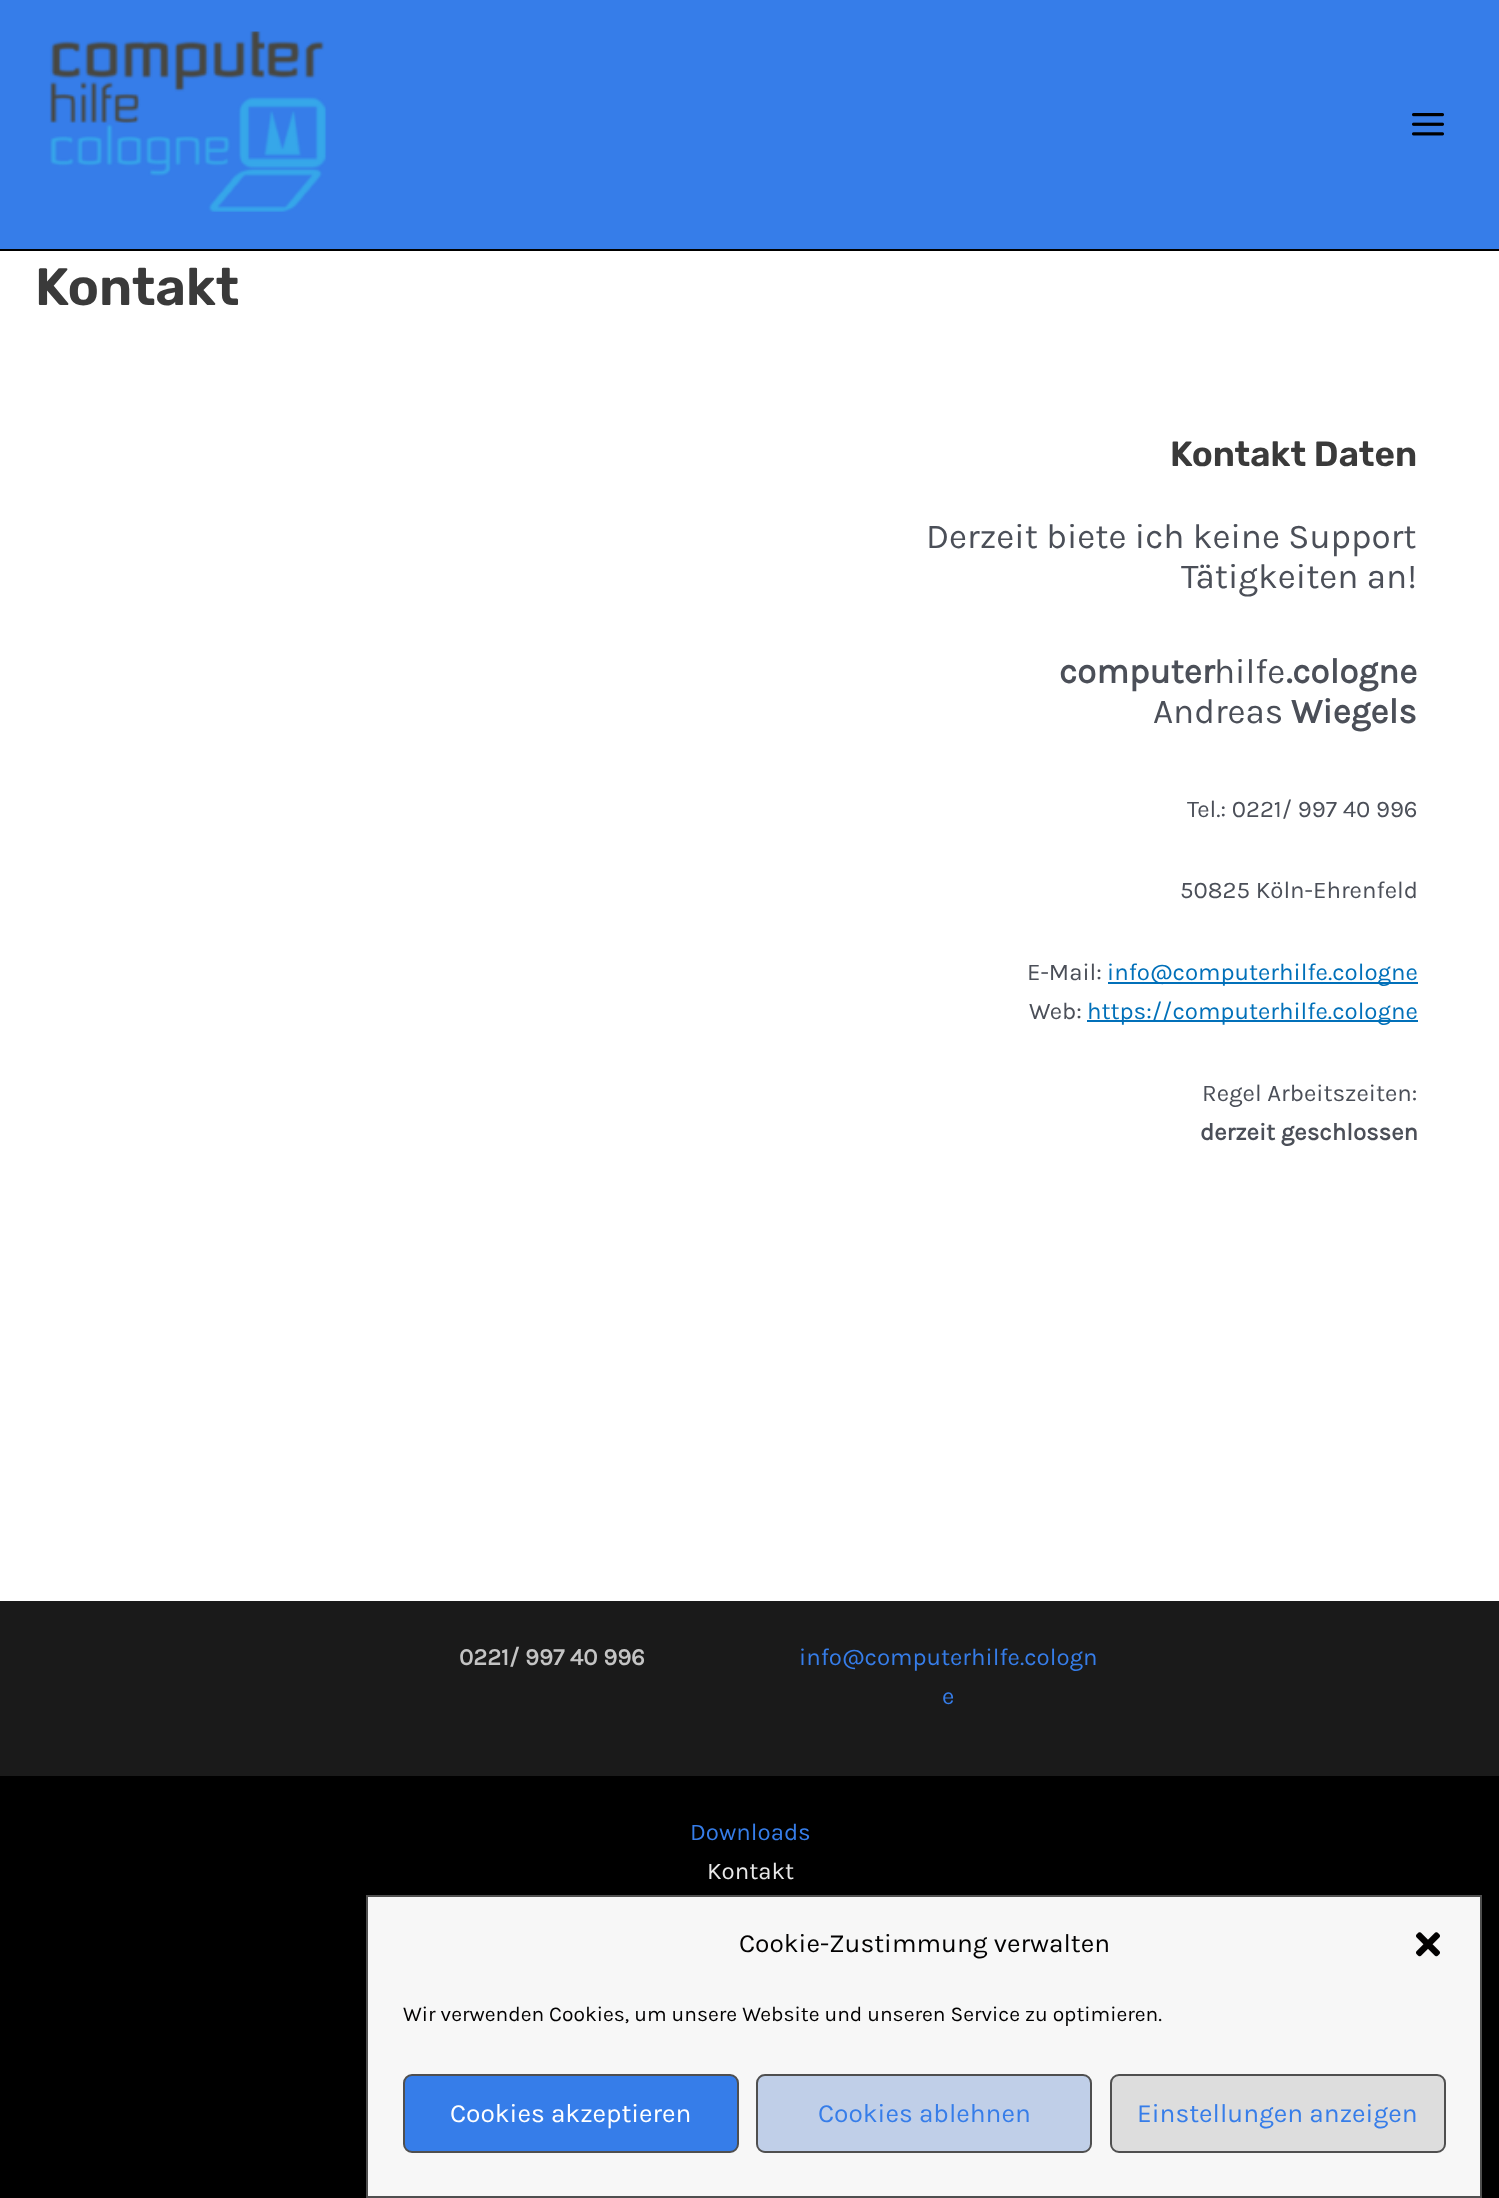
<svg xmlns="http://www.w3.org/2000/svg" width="1499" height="2198">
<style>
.a{font:600 52.5px Rubik;fill:#3a3a3a}
.b{font:600 35px Rubik;fill:#3a3a3a}
.c{font:35px Karla;fill:#4b4f58}
.d{font:bold 35px Karla;fill:#4b4f58}
.e{font:24px Karla;fill:#4b4f58}
.f{font:24px Karla;fill:#0170b9}
.g{font:bold 24px Karla;fill:#4b4f58}
.h{font:bold 24px Karla;fill:#c4c4c4}
.i{font:24px Karla;fill:#367de9}
.j{font:24px Karla;fill:#e9e9e9}
.k{font:26.25px Karla;fill:#020101}
.l{font:21px Karla;fill:#020101}
.m{font:26.25px Karla;fill:#fff}
.n{font:26.25px Karla;fill:#367de9}
</style>
<rect width="100%" height="100%" fill="#fff"/>
<path fill="#367de9" d="M0 0h1499v249H0z"/>
<path fill="#000" d="M0 249h1499v2H0z"/>
<image href="1.png" x="49" y="31" width="278" height="181"/>
<image href="2.png" x="1412" y="113" width="32" height="23"/>
<path fill="#0170b9" d="M1108 982h310v2H1108z"/>
<path fill="#0170b9" d="M1087 1020h331v2H1087z"/>
<path fill="#1a1a1a" d="M0 1601h1499v175H0z"/>
<path fill="#000" d="M0 1776h1499v422H0z"/>
<path fill="#f7f7f7" stroke="#4f4f4f" stroke-width="2" d="M367 1896h1114v301H367z"/>
<image href="3.png" x="1416" y="1932" width="24" height="25"/>
<rect fill="#367de9" stroke="#4f4f4f" stroke-width="2" x="404" y="2075" width="334" height="77" rx="8"/>
<rect fill="#c0cfe8" stroke="#4f4f4f" stroke-width="2" x="757" y="2075" width="334" height="77" rx="8"/>
<rect fill="#ddd" stroke="#4f4f4f" stroke-width="2" x="1111" y="2075" width="334" height="77" rx="8"/>
<text class="a" x="35" y="305">Kontakt</text>
<text class="b" x="1170" y="466">Kontakt Daten</text>
<text class="c" x="926" y="548">Derzeit biete ich keine Support</text>
<text class="c" x="1181" y="588">Tätigkeiten an!</text>
<text class="d" x="1059" y="683">computer</text>
<text class="c" x="1214" y="683">hilfe</text>
<text class="d" x="1286" y="683">.cologne</text>
<text class="c" x="1153" y="723">Andreas</text>
<text class="d" x="1291" y="723">Wiegels</text>
<text class="e" x="1187" y="817">Tel.: 0221/ 997 40 996</text>
<text class="e" x="1180" y="898">50825 Köln-Ehrenfeld</text>
<text class="e" x="1027" y="980">E-Mail:</text>
<text class="f" x="1107" y="980">info@computerhilfe.cologne</text>
<text class="e" x="1029" y="1019">Web:</text>
<text class="f" x="1087" y="1019">https://computerhilfe.cologne</text>
<text class="e" x="1202" y="1101">Regel Arbeitszeiten:</text>
<text class="g" x="1200" y="1140">derzeit geschlossen</text>
<text class="h" x="459" y="1665">0221/ 997 40 996</text>
<text class="i" x="799" y="1665">info@computerhilfe.cologn</text>
<text class="i" x="942" y="1704">e</text>
<text class="i" x="690" y="1840">Downloads</text>
<text class="j" x="707" y="1879">Kontakt</text>
<text class="k" x="739" y="1952">Cookie-Zustimmung verwalten</text>
<text class="l" x="403" y="2021">Wir verwenden Cookies, um unsere Website und unseren Service zu optimieren.</text>
<text class="m" x="450" y="2122">Cookies akzeptieren</text>
<text class="n" x="818" y="2122">Cookies ablehnen</text>
<text class="n" x="1137" y="2122">Einstellungen anzeigen</text>
</svg>
